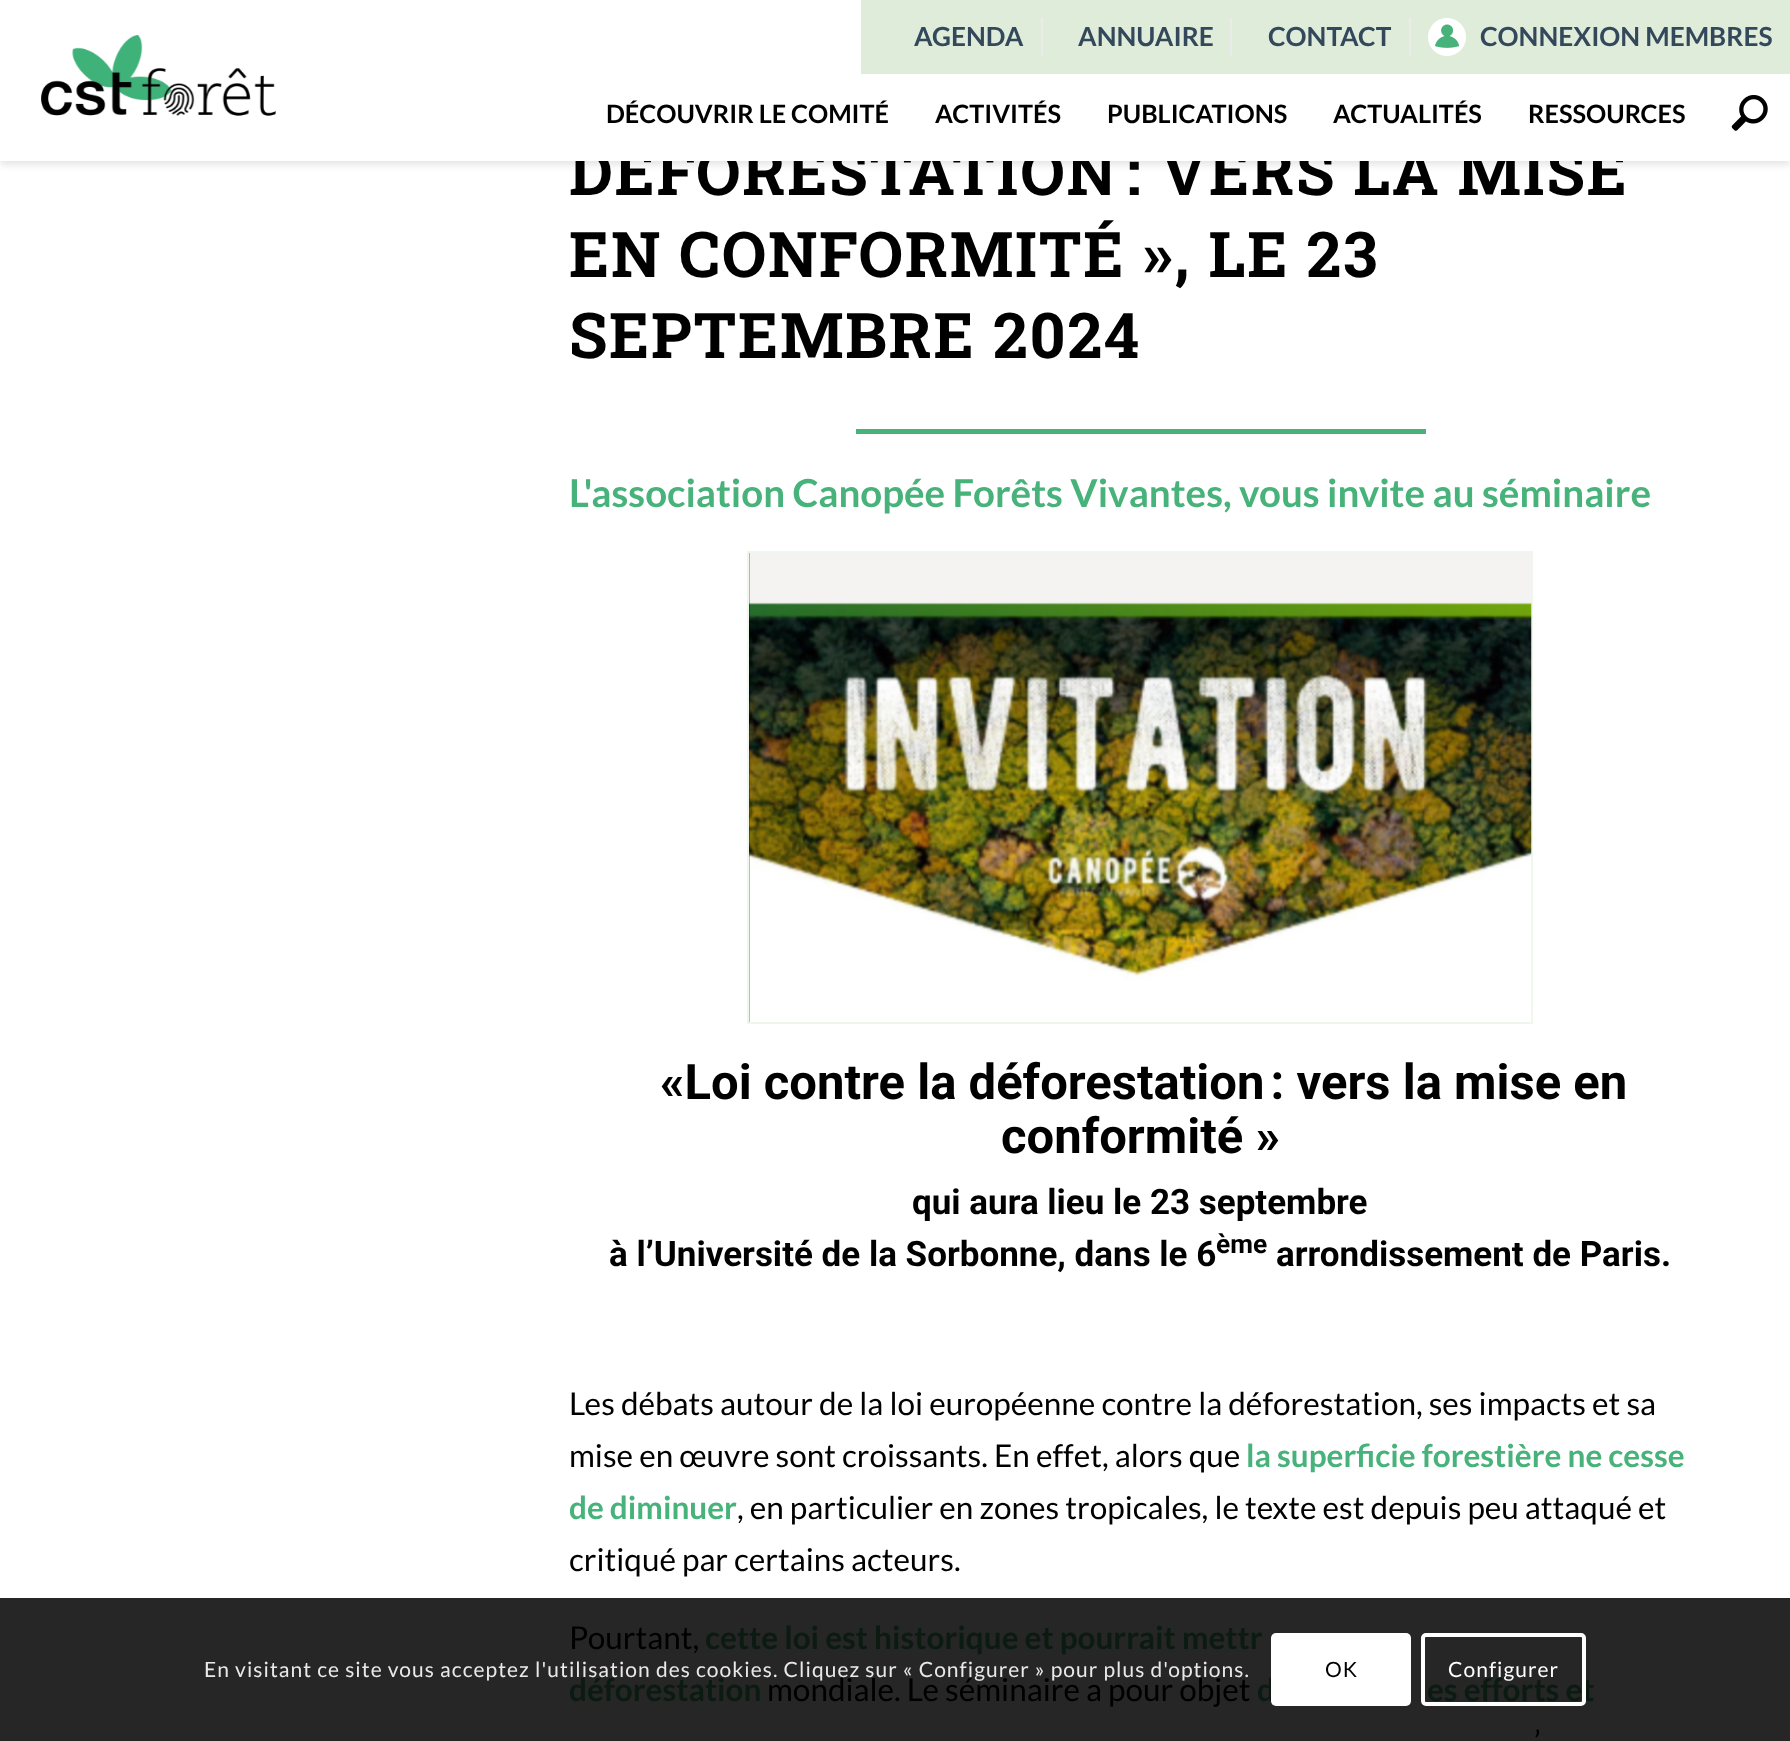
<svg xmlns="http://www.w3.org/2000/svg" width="1790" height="1741">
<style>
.a{font:bold 63px Roboto Slab;letter-spacing:1.75px;fill:#000}
.b{font:bold 26.25px Lato;fill:#34485c}
.c{font:bold 25.25px Lato;fill:#000}
.d{font:bold 38.5px Lato;fill:#47b27a}
.e{font:bold 49px Roboto;fill:#000}
.f{font:bold 35px Roboto;fill:#000}
.g{font:bold 26.25px Roboto;fill:#000}
.h{font:31.5px Lato;fill:#000}
.i{font:bold 31.5px Lato;fill:#47b27a}
.j{font:bold 31.5px Lato;fill:#0b1b12}
.k{font:21px Lato;letter-spacing:1.05px;fill:#e9e9e9}
.l{font:21px Lato;letter-spacing:1.05px;fill:#000}
.m{font:21px Lato;letter-spacing:1.05px;fill:#fff}
</style>
<rect width="100%" height="100%" fill="#fff"/>
<path fill="#0000001a" filter="blur(3.5px)" d="M0 4h1790v161H0z"/>
<path fill="#262626" d="M0 1598h1790v143H0z"/>
<path fill="#47b27a" d="M856 429h570v5H856z"/>
<path fill="none" stroke="#eff6ec" stroke-width="2" d="M748 552h784v471H748z"/>
<image href="4.png" x="749" y="553" width="783" height="469"/>
<text class="a" x="569" y="195">DÉFORESTATION : VERS LA MISE</text>
<path fill="#fff" d="M0 0h1790v161H0z"/>
<path fill="#dfecd9" d="M861 0h929v74H861z"/>
<text class="b" x="1480" y="46">CONNEXION MEMBRES</text>
<image href="1.png" x="1428" y="18" width="38" height="38"/>
<text class="b" x="1268" y="46">CONTACT</text>
<path fill="#ebebeb" d="M1409 18h2v38H1409z"/>
<text class="b" x="1078" y="46">ANNUAIRE</text>
<path fill="#ebebeb" d="M1230 18h2v38H1230z"/>
<text class="b" x="914" y="46">AGENDA</text>
<path fill="#ebebeb" d="M1041 18h2v38H1041z"/>
<image href="3.png" x="1731" y="95" width="37" height="36"/>
<text class="c" x="1528" y="123">RESSOURCES</text>
<text class="c" x="1333" y="123">ACTUALITÉS</text>
<text class="c" x="1107" y="123">PUBLICATIONS</text>
<text class="c" x="935" y="123">ACTIVITÉS</text>
<text class="c" x="606" y="123">DÉCOUVRIR LE COMITÉ</text>
<image href="2.png" x="41" y="35" width="235" height="81"/>
<text class="a" x="569" y="277">EN CONFORMITÉ », LE 23</text>
<text class="a" x="569" y="358">SEPTEMBRE 2024</text>
<text class="d" x="569" y="507">L'association Canopée Forêts Vivantes, vous invite au séminaire</text>
<text class="e" x="660" y="1099">«Loi contre la déforestation : vers la mise en</text>
<text class="e" x="1001" y="1153">conformité »</text>
<text class="f" x="912" y="1214">qui aura lieu le 23 septembre</text>
<text class="f" x="609" y="1266">à l’Université de la Sorbonne, dans le 6</text>
<text class="g" x="1216" y="1253">ème</text>
<text class="f" x="1276" y="1266">arrondissement de Paris.</text>
<text class="h" x="569" y="1415">Les débats autour de la loi européenne contre la déforestation, ses impacts et sa</text>
<text class="h" x="569" y="1467">mise en œuvre sont croissants. En effet, alors que</text>
<text class="i" x="1246" y="1467">la superficie forestière ne cesse</text>
<text class="i" x="569" y="1519">de diminuer</text>
<text class="h" x="737" y="1519">, en particulier en zones tropicales, le texte est depuis peu attaqué et</text>
<text class="h" x="569" y="1571">critiqué par certains acteurs.</text>
<text class="h" x="569" y="1649">Pourtant,</text>
<text class="j" x="705" y="1649">cette loi est historique et pourrait mettr</text>
<text class="j" x="569" y="1701">déforestation</text>
<text class="h" x="767" y="1701">mondiale. Le séminaire a pour objet</text>
<text class="j" x="1257" y="1701">d</text>
<text class="j" x="1427" y="1701">es efforts et</text>
<text class="h" x="1534" y="1753">’</text>
<text class="k" x="204" y="1677">En visitant ce site vous acceptez l'utilisation des cookies. Cliquez sur « Configurer » pour plus d'options.</text>
<rect fill="#fff" x="1271" y="1633" width="140" height="73" rx="5"/>
<text class="l" x="1325" y="1677">OK</text>
<rect fill="none" stroke="#fff" stroke-width="4" x="1423" y="1635" width="161" height="69" rx="3"/>
<text class="m" x="1448" y="1677">Configurer</text>
</svg>
